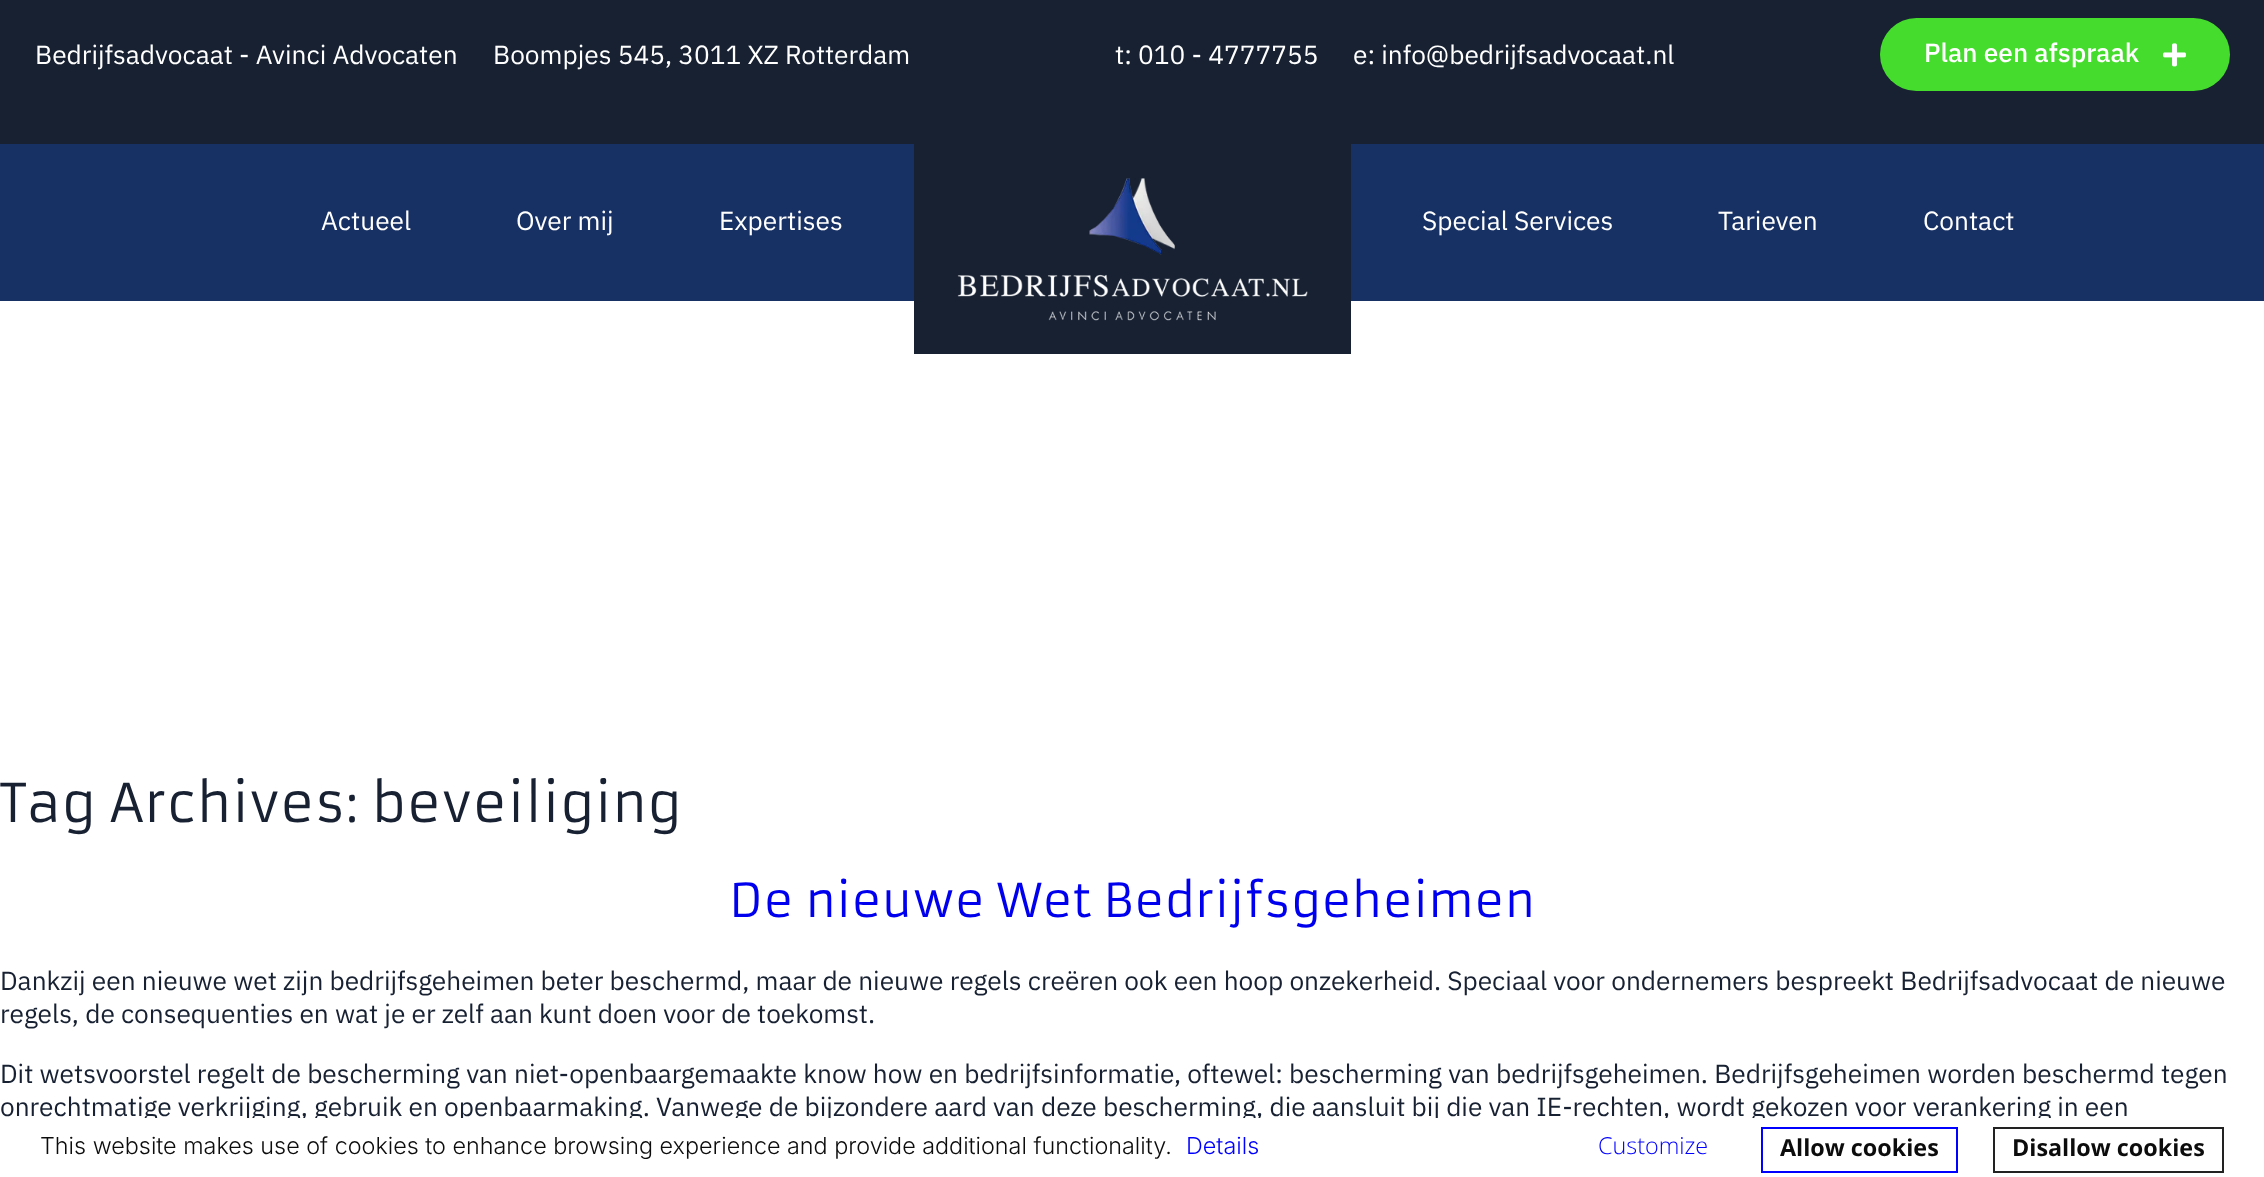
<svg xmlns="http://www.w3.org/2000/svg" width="2264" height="1177">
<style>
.a{font:26.25px IBM Plex Sans;fill:#fff}
.b{font:500 26.25px IBM Plex Sans;fill:#fff}
.c{font:52.5px Armata;fill:#172132}
.d{font:45.9px Armata;fill:#00e}
.e{font:26.25px IBM Plex Sans;fill:#172132}
.f{font:300 23.35px Inter;fill:#0c0c0c}
.g{font:300 23.35px Inter;fill:#00f}
.h{font:300 23.35px Open Sans;fill:#00f}
.i{font:bold 23.35px Open Sans;fill:#0c0c0c}
</style>
<rect width="100%" height="100%" fill="#fff"/>
<path fill="#172132" d="M0 0h2264v144H0z"/>
<rect fill="#46dc2e" x="1880" y="18" width="350" height="73" rx="36.5"/>
<image href="1.png" x="2163" y="43" width="23" height="24"/>
<path fill="#183164" d="M0 144h2264v157H0z"/>
<path fill="#172132" d="M914 144h437v210H914z"/>
<image href="2.png" x="957" y="178" width="351" height="143"/>
<path fill="none" stroke="#00f" stroke-width="2" d="M1762 1128h195v44H1762z"/>
<path fill="none" stroke="#222" stroke-width="2" d="M1994 1128h229v44H1994z"/>
<text class="a" x="35" y="64">Bedrijfsadvocaat - Avinci Advocaten</text>
<text class="a" x="493" y="64">Boompjes 545, 3011 XZ Rotterdam</text>
<text class="a" x="1115" y="64">t: 010 - 4777755</text>
<text class="a" x="1353" y="64">e: info@bedrijfsadvocaat.nl</text>
<text class="b" x="1924" y="62">Plan een afspraak</text>
<text class="a" x="321" y="230">Actueel</text>
<text class="a" x="516" y="230">Over mij</text>
<text class="a" x="719" y="230">Expertises</text>
<text class="a" x="1422" y="230">Special Services</text>
<text class="a" x="1718" y="230">Tarieven</text>
<text class="a" x="1923" y="230">Contact</text>
<text class="c" x="0" y="822">Tag Archives: beveiliging</text>
<text class="d" x="729" y="917">De nieuwe Wet Bedrijfsgeheimen</text>
<text class="e" x="0" y="990">Dankzij een nieuwe wet zijn bedrijfsgeheimen beter beschermd, maar de nieuwe regels creëren ook een hoop onzekerheid. Speciaal voor ondernemers bespreekt Bedrijfsadvocaat de nieuwe</text>
<text class="e" x="0" y="1023">regels, de consequenties en wat je er zelf aan kunt doen voor de toekomst.</text>
<text class="e" x="0" y="1083">Dit wetsvoorstel regelt de bescherming van niet-openbaargemaakte know how en bedrijfsinformatie, oftewel: bescherming van bedrijfsgeheimen. Bedrijfsgeheimen worden beschermd tegen</text>
<text class="e" x="0" y="1116">onrechtmatige verkrijging, gebruik en openbaarmaking. Vanwege de bijzondere aard van deze bescherming, die aansluit bij die van IE-rechten, wordt gekozen voor verankering in een</text>
<path fill="#fff" d="M144 1118h1907v4H144z"/>
<text class="f" x="40" y="1154">This website makes use of cookies to enhance browsing experience and provide additional functionality.</text>
<text class="g" x="1186" y="1154">Details</text>
<text class="h" x="1598" y="1154">Customize</text>
<text class="i" x="1780" y="1156">Allow cookies</text>
<text class="i" x="2012" y="1156">Disallow cookies</text>
</svg>
